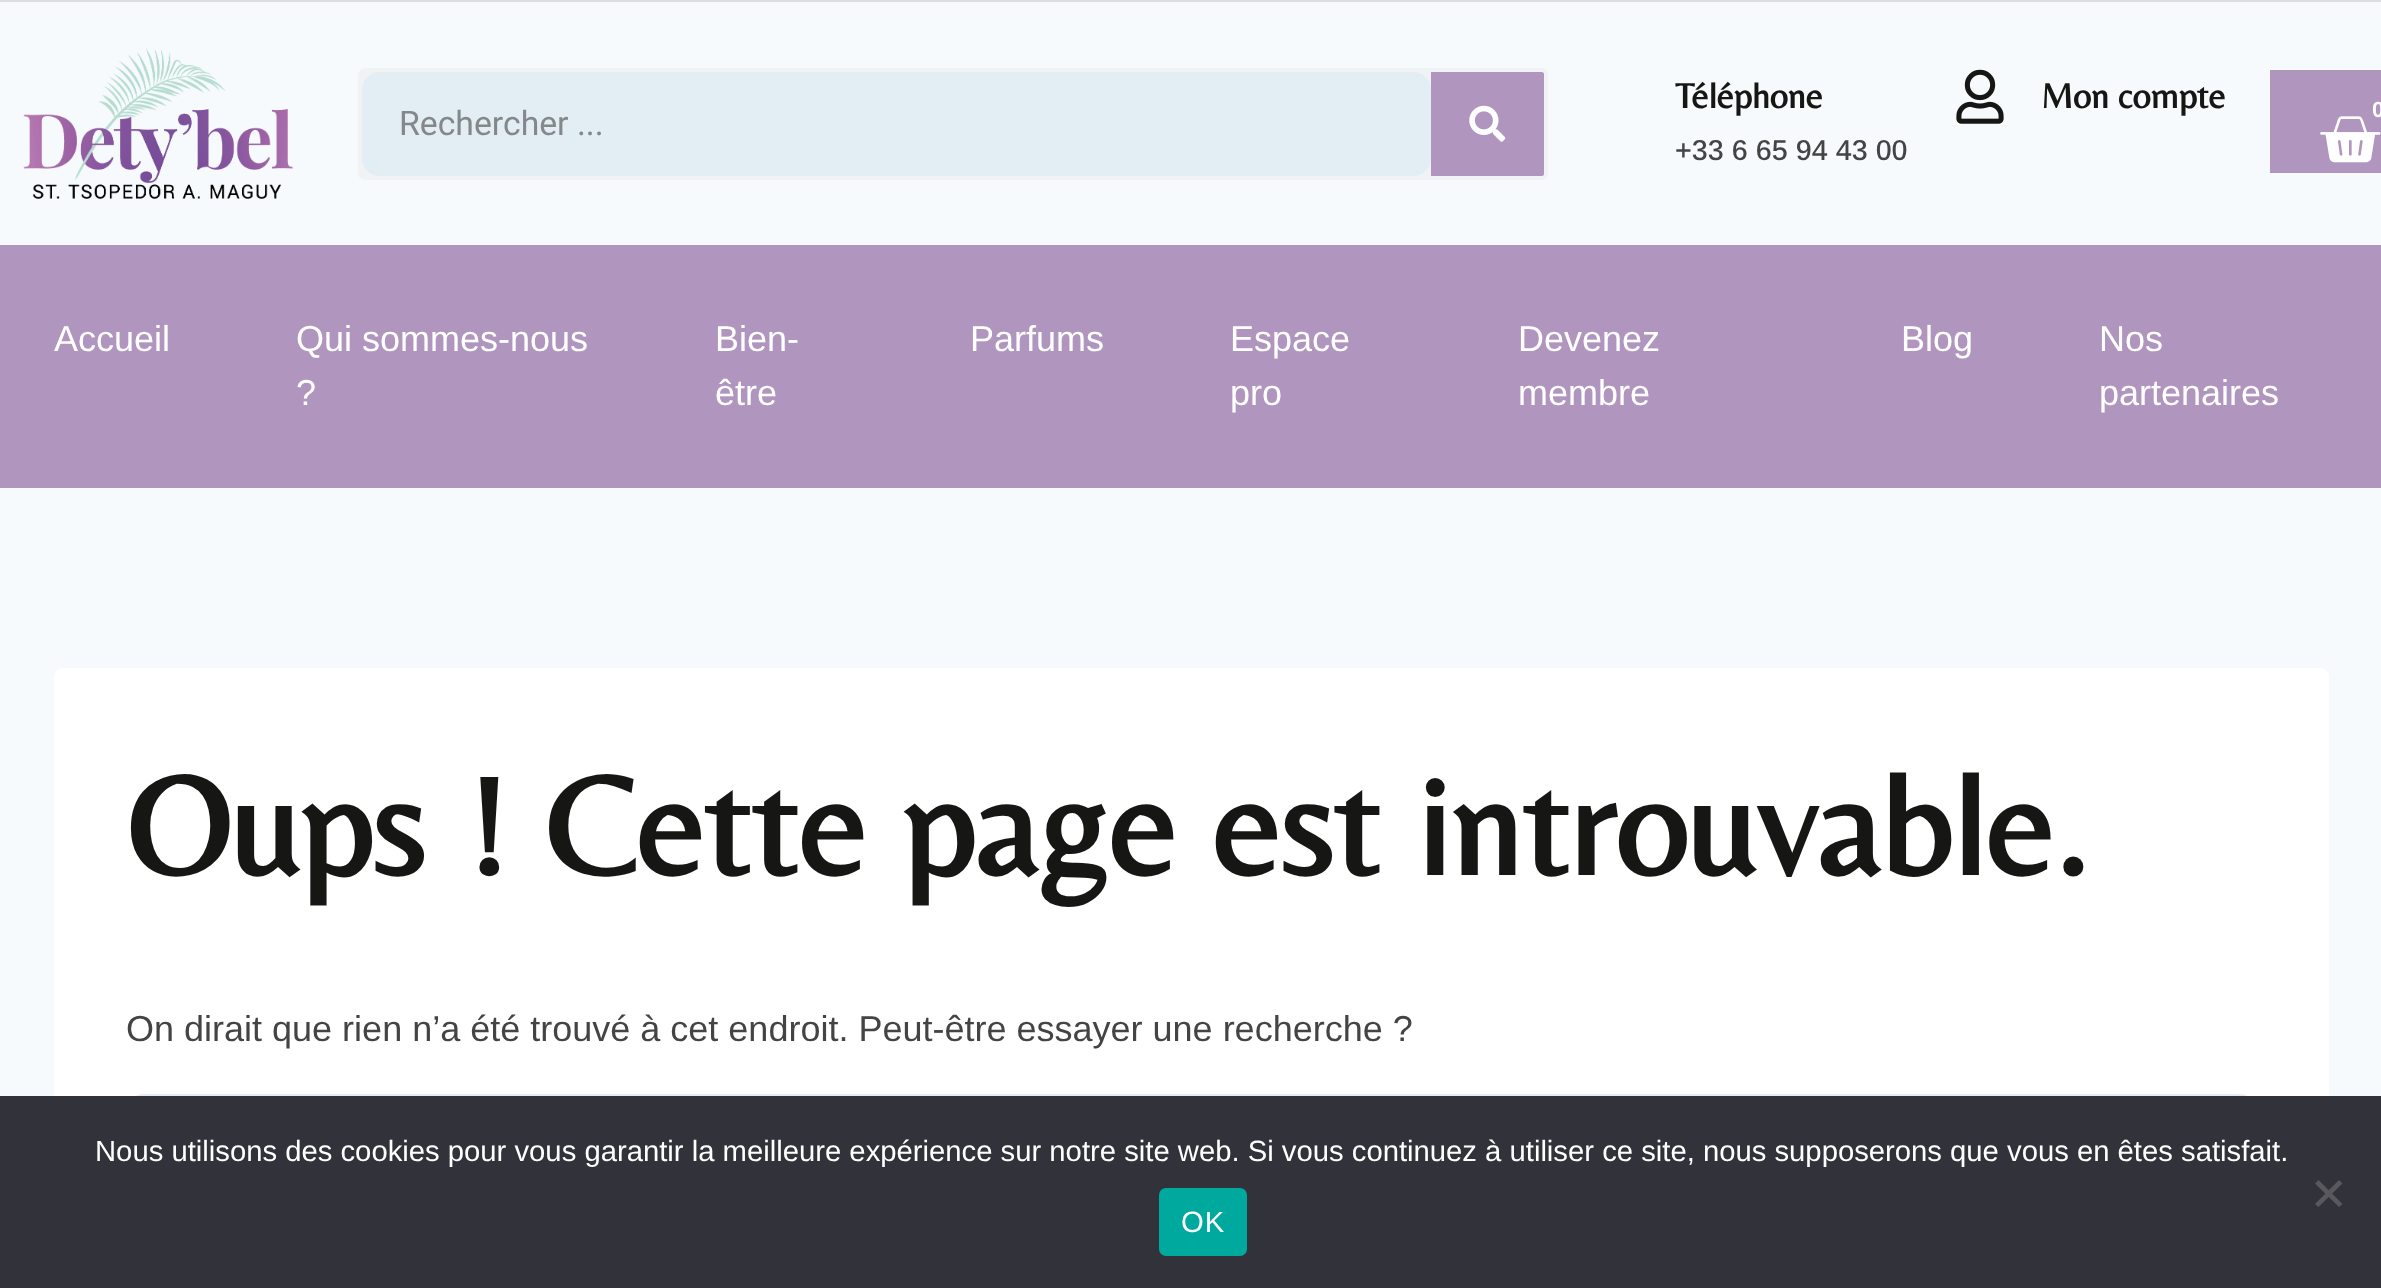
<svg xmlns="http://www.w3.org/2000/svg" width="2381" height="1288">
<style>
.a{font:33.75px Roboto;fill:#84888a}
.b{font:bold 36px Belleza;fill:#161614}
.c{font:500 28.75px Arimo;fill:#444}
.d{font:bold 22px Arimo;fill:#fff}
.e{font:36px Arimo;fill:#fff}
.f{font:bold 144px Belleza;fill:#161614}
.g{font:36px Arimo;fill:#444}
.h{font:29.25px Liberation Sans;fill:#fff}
.i{font:29.25px Liberation Sans;letter-spacing:1px;fill:#fff}
</style>
<rect width="100%" height="100%" fill="#f7fafc"/>
<path fill="#ddd" d="M0 0h2381v2H0z"/>
<image href="1.png" x="23" y="48" width="270" height="151"/>
<rect fill="#f1f2f3" x="358" y="68" width="1190" height="112" rx="7"/>
<rect fill="#e3eef4" x="362" y="72" width="1069" height="104" rx="18"/>
<path fill="#b095bf" d="M1431 72h111c1 0 2 1 2 2v100c0 1-1 2-2 2h-111z"/>
<image href="2.png" x="1469" y="105" width="37" height="37"/>
<image href="3.png" x="1956" y="69" width="48" height="55"/>
<path fill="#b095bf" d="M2270 70h111v103H2270z"/>
<image href="4.png" x="2320" y="116" width="61" height="47"/>
<circle fill="#b095bf" cx="2378" cy="110" r="18"/>
<path fill="#b095bf" d="M0 245h2381v243H0z"/>
<rect fill="#fff" x="54" y="668" width="2275" height="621" rx="9"/>
<rect fill="#e3eef4" x="126" y="1094" width="2131" height="123" rx="18"/>
<path fill="#32323a" d="M0 1096h2381v192H0z"/>
<path fill="#59595d" d="M2339 1180l3.5 3.5l-24 23.5l-3.5-3z"/>
<path fill="#59595d" d="M2315 1183.5l3.5-3.5l24 24l-3.5 3z"/>
<rect fill="#00a99d" x="1159" y="1188" width="88" height="68" rx="7"/>
<text class="a" x="399" y="135">Rechercher ...</text>
<text class="b" x="1675" y="108">Téléphone</text>
<text class="c" x="1675" y="160">+33 6 65 94 43 00</text>
<text class="b" x="2041" y="108">Mon compte</text>
<text class="d" x="2372" y="117">0</text>
<text class="e" x="54" y="351">Accueil</text>
<text class="e" x="296" y="351">Qui sommes-nous</text>
<text class="e" x="296" y="405">?</text>
<text class="e" x="715" y="351">Bien-</text>
<text class="e" x="715" y="405">être</text>
<text class="e" x="970" y="351">Parfums</text>
<text class="e" x="1230" y="351">Espace</text>
<text class="e" x="1230" y="405">pro</text>
<text class="e" x="1518" y="351">Devenez</text>
<text class="e" x="1518" y="405">membre</text>
<text class="e" x="1901" y="351">Blog</text>
<text class="e" x="2099" y="351">Nos</text>
<text class="e" x="2099" y="405">partenaires</text>
<text class="f" x="126" y="875">Oups ! Cette page est introuvable.</text>
<text class="g" x="126" y="1041">On dirait que rien n’a été trouvé à cet endroit. Peut-être essayer une recherche ?</text>
<text class="h" x="95" y="1161">Nous utilisons des cookies pour vous garantir la meilleure expérience sur notre site web. Si vous continuez à utiliser ce site, nous supposerons que vous en êtes satisfait.</text>
<text class="i" x="1181" y="1232">OK</text>
</svg>
